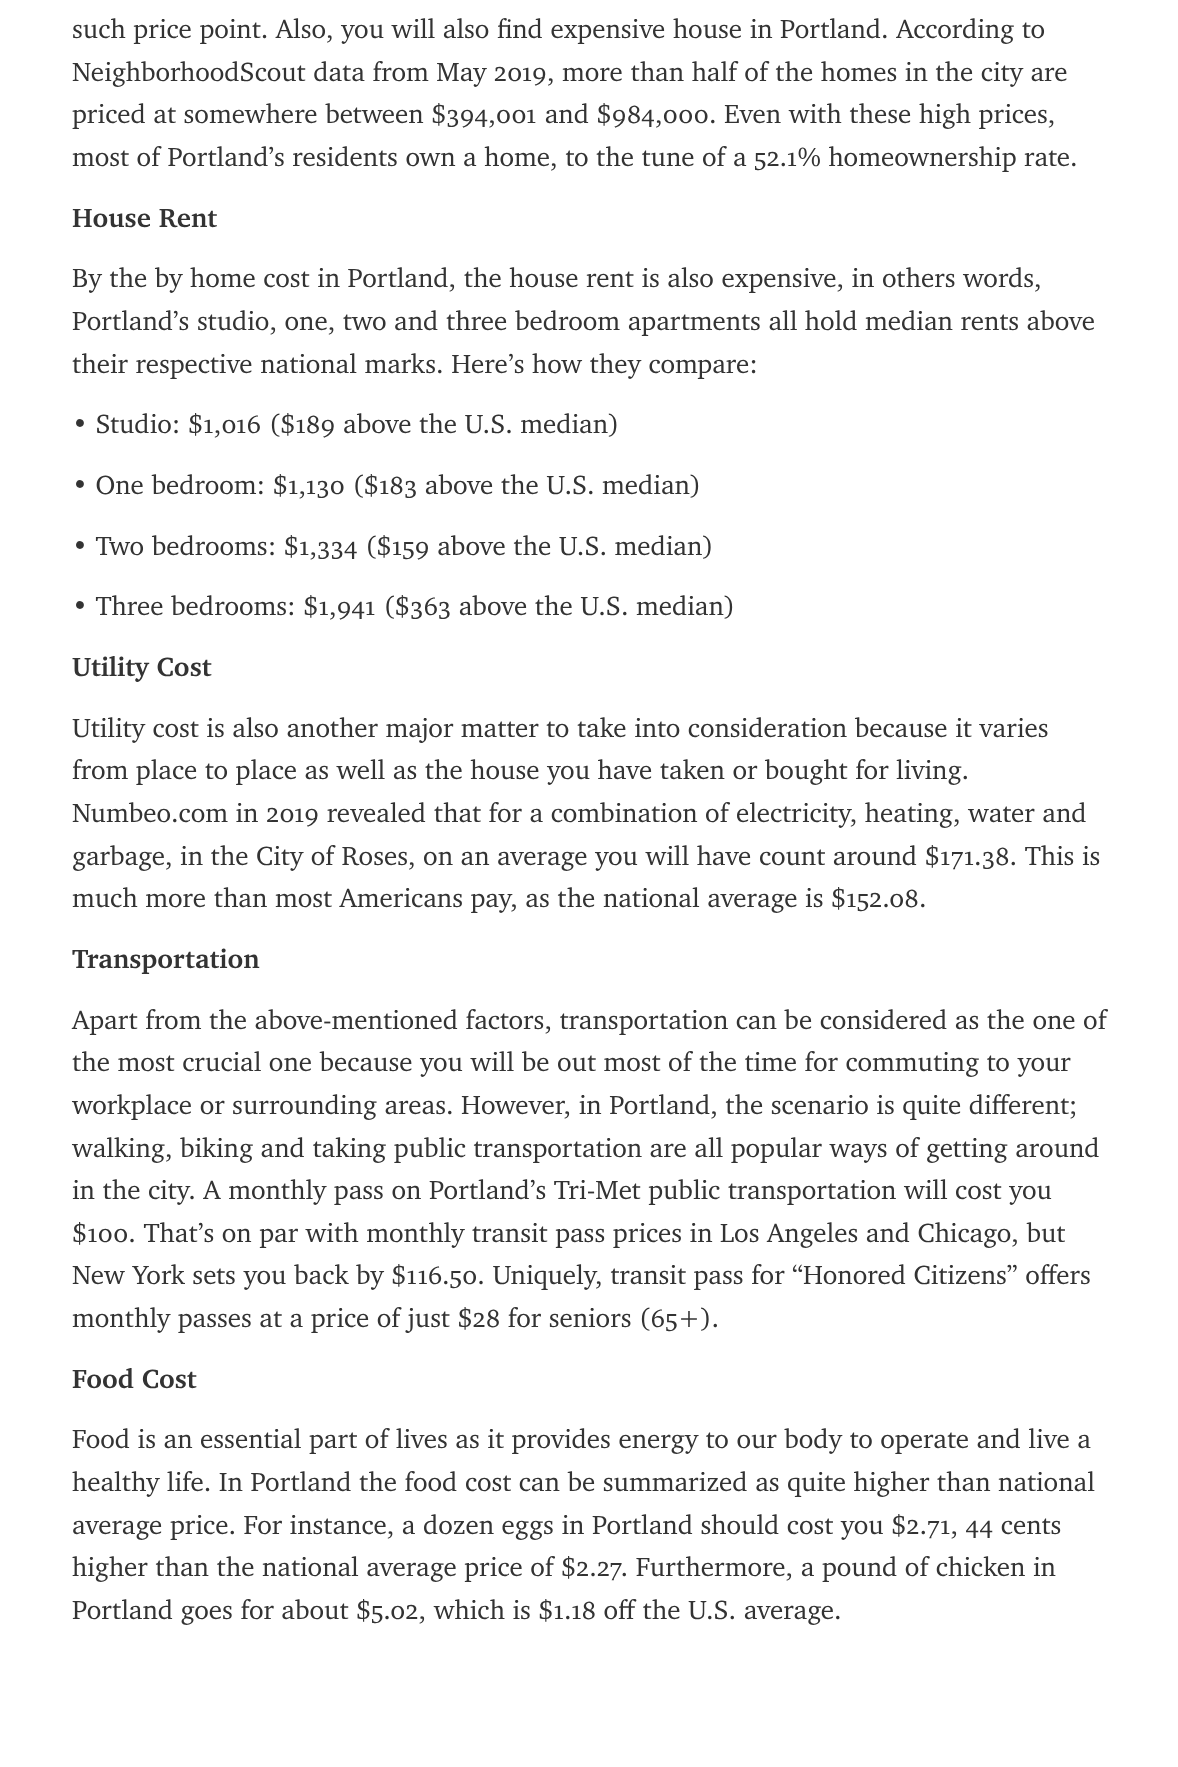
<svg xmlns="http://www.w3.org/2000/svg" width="1178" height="1767">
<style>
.a{font:27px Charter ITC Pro;fill:#333}
.b{font:bold 27px Charter ITC Pro;fill:#333}
</style>
<rect width="100%" height="100%" fill="#fff"/>
<text class="a" x="72" y="38">such price point. Also, you will also find expensive house in Portland. According to</text>
<text class="a" x="72" y="81">NeighborhoodScout data from May 2019, more than half of the homes in the city are</text>
<text class="a" x="72" y="123">priced at somewhere between $394,001 and $984,000. Even with these high prices,</text>
<text class="a" x="72" y="166">most of Portland’s residents own a home, to the tune of a 52.1% homeownership rate.</text>
<text class="b" x="72" y="227">House Rent</text>
<text class="a" x="72" y="287">By the by home cost in Portland, the house rent is also expensive, in others words,</text>
<text class="a" x="72" y="330">Portland’s studio, one, two and three bedroom apartments all hold median rents above</text>
<text class="a" x="72" y="373">their respective national marks. Here’s how they compare:</text>
<text class="a" x="72" y="433">• Studio: $1,016 ($189 above the U.S. median)</text>
<text class="a" x="72" y="494">• One bedroom: $1,130 ($183 above the U.S. median)</text>
<text class="a" x="72" y="555">• Two bedrooms: $1,334 ($159 above the U.S. median)</text>
<text class="a" x="72" y="615">• Three bedrooms: $1,941 ($363 above the U.S. median)</text>
<text class="b" x="72" y="676">Utility Cost</text>
<text class="a" x="72" y="737">Utility cost is also another major matter to take into consideration because it varies</text>
<text class="a" x="72" y="779">from place to place as well as the house you have taken or bought for living.</text>
<text class="a" x="72" y="822">Numbeo.com in 2019 revealed that for a combination of electricity, heating, water and</text>
<text class="a" x="72" y="865">garbage, in the City of Roses, on an average you will have count around $171.38. This is</text>
<text class="a" x="72" y="907">much more than most Americans pay, as the national average is $152.08.</text>
<text class="b" x="72" y="968">Transportation</text>
<text class="a" x="72" y="1029">Apart from the above-mentioned factors, transportation can be considered as the one of</text>
<text class="a" x="72" y="1071">the most crucial one because you will be out most of the time for commuting to your</text>
<text class="a" x="72" y="1114">workplace or surrounding areas. However, in Portland, the scenario is quite different;</text>
<text class="a" x="72" y="1157">walking, biking and taking public transportation are all popular ways of getting around</text>
<text class="a" x="72" y="1199">in the city. A monthly pass on Portland’s Tri-Met public transportation will cost you</text>
<text class="a" x="72" y="1242">$100. That’s on par with monthly transit pass prices in Los Angeles and Chicago, but</text>
<text class="a" x="72" y="1284">New York sets you back by $116.50. Uniquely, transit pass for “Honored Citizens” offers</text>
<text class="a" x="72" y="1327">monthly passes at a price of just $28 for seniors (65+).</text>
<text class="b" x="72" y="1388">Food Cost</text>
<text class="a" x="72" y="1448">Food is an essential part of lives as it provides energy to our body to operate and live a</text>
<text class="a" x="72" y="1491">healthy life. In Portland the food cost can be summarized as quite higher than national</text>
<text class="a" x="72" y="1534">average price. For instance, a dozen eggs in Portland should cost you $2.71, 44 cents</text>
<text class="a" x="72" y="1576">higher than the national average price of $2.27. Furthermore, a pound of chicken in</text>
<text class="a" x="72" y="1619">Portland goes for about $5.02, which is $1.18 off the U.S. average.</text>
</svg>
